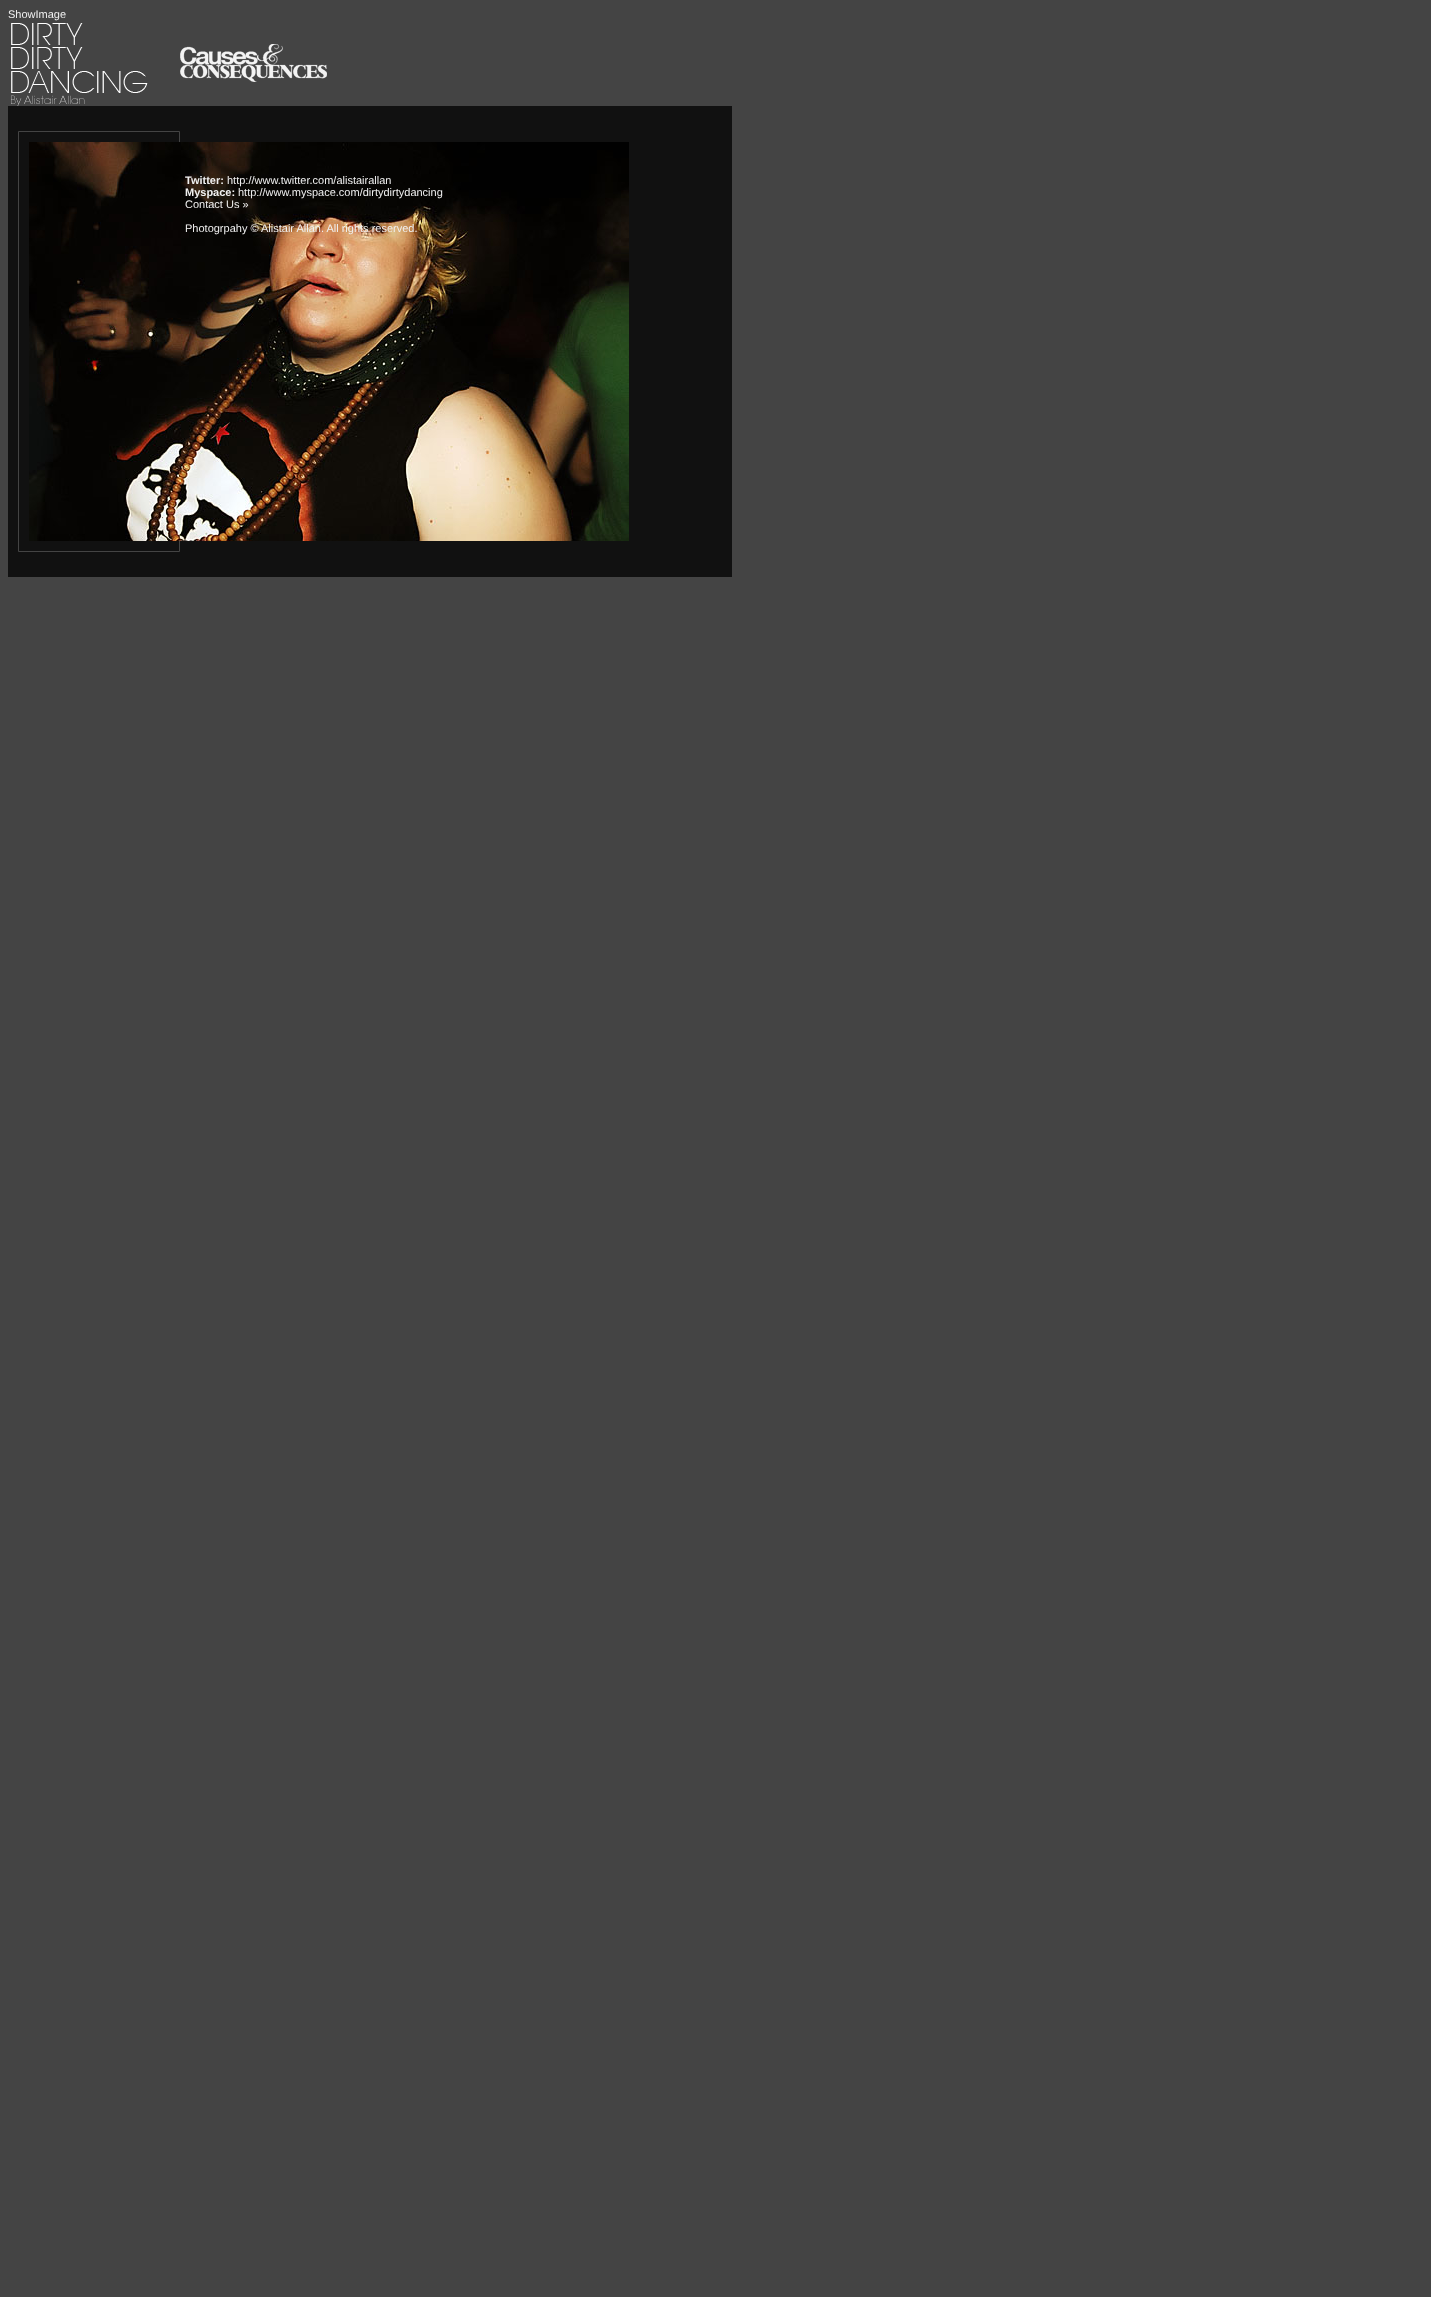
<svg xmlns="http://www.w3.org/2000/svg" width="1431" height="2297">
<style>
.a{font:11px Liberation Sans;fill:#f0f0f0}
.b{font:bold 11px Liberation Sans;fill:#f0f0f0}
</style>
<rect width="100%" height="100%" fill="#444"/>
<image href="1.png" x="11" y="23" width="137" height="83"/>
<image href="2.png" x="180" y="44" width="147" height="38"/>
<path fill="#111" d="M8 106h724v471H8z"/>
<path fill="none" stroke="#444" d="M18.5 131.5h161v420H18.5z"/>
<image href="3.png" x="29" y="142" width="600" height="399"/>
<text class="a" x="8" y="18">ShowImage</text>
<text class="b" x="185" y="184">Twitter:</text>
<text class="a" x="227" y="184">http://www.twitter.com/alistairallan</text>
<text class="b" x="185" y="196">Myspace:</text>
<text class="a" x="238" y="196">http://www.myspace.com/dirtydirtydancing</text>
<text class="a" x="185" y="208">Contact Us »</text>
<text class="a" x="185" y="232">Photogrpahy © Alistair Allan. All rights reserved.</text>
</svg>
